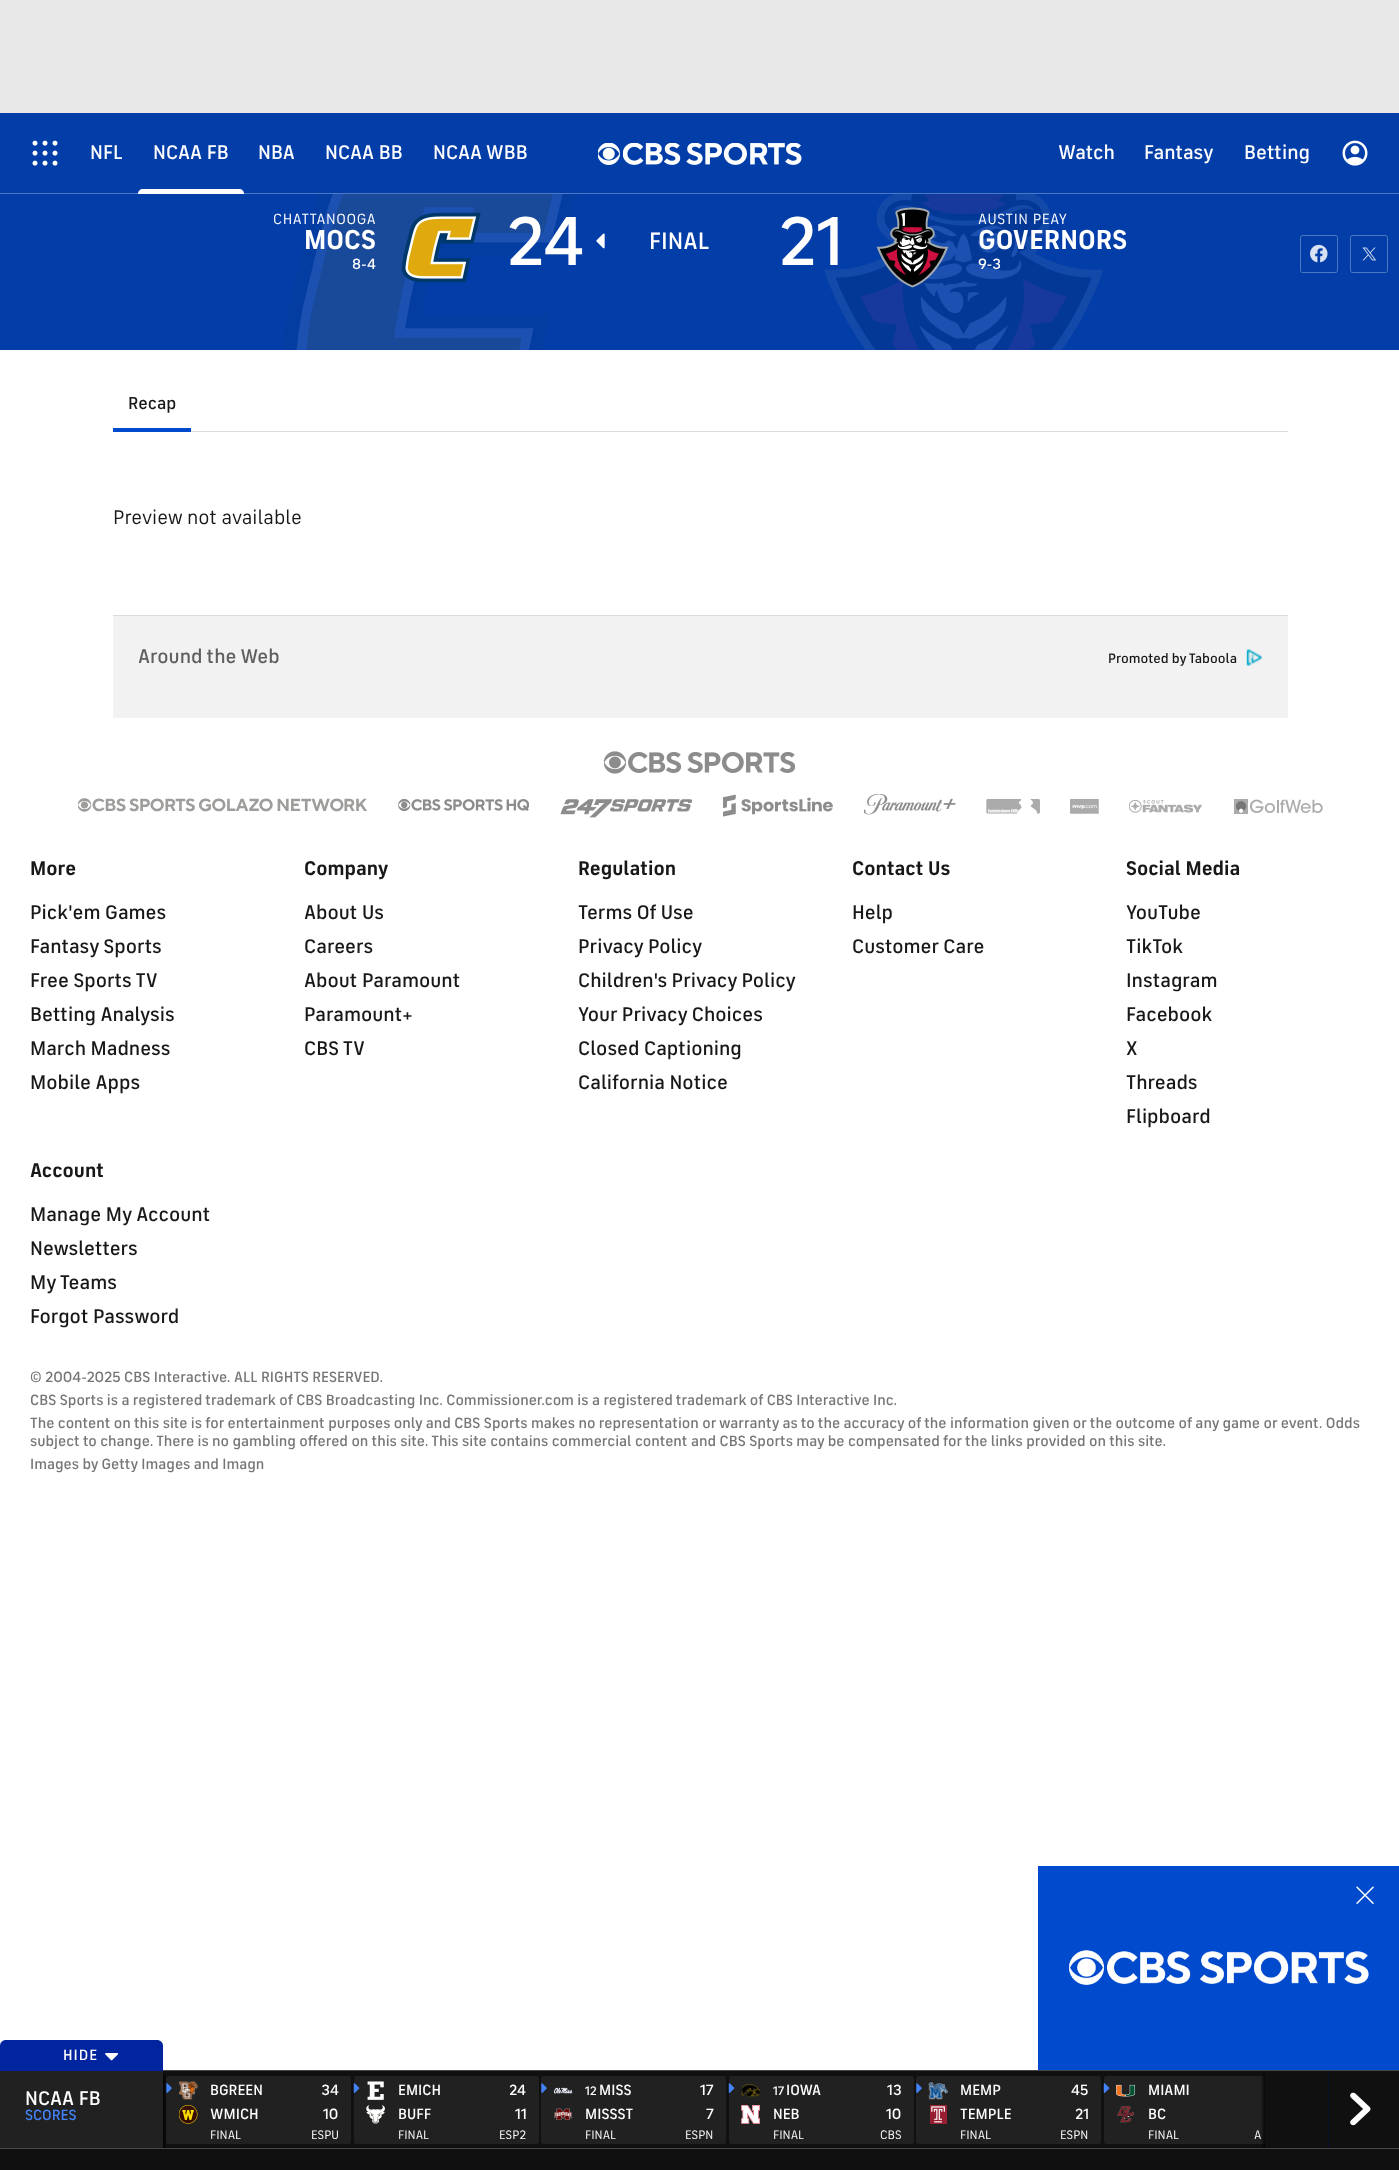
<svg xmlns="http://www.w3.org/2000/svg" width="1399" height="2170">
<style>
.a{font:500 20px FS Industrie;fill:#fff}
.b{font:15px FS Industrie;letter-spacing:0.6px;fill:#fff}
.c{font:bold 27.5px FS Industrie;fill:#fff}
.d{font:500 15px FS Industrie;fill:#fff}
.e{font:500 70px FS Industrie;fill:#fff}
.f{font:500 24px FS Industrie;fill:#fff}
.g{font:500 17.5px FS Industrie;fill:#181818}
.h{font:20px FS Industrie;fill:#181818}
.i{font:500 20px FS Industrie;fill:#5f5f5f}
.j{font:500 13.75px FS Industrie;fill:#181818}
.k{font:500 15px FS Industrie;letter-spacing:1px;fill:#fff}
.l{font:500 15px FS Industrie;fill:#4383fa}
.m{font:12.5px FS Industrie;fill:#fff}
.n{font:500 12.5px FS Industrie;fill:#fff}
.o{font:bold 20px FS Industrie;fill:#181818}
.p{font:500 20px FS Industrie;fill:#181818}
.q{font:500 15px FS Industrie;fill:#767676}
</style>
<defs>
<clipPath id="clip1"><path d="M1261 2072h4v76H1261z"/></clipPath>
</defs>
<rect width="100%" height="100%" fill="#fff"/>
<path fill="#e8e8e8" d="M0 0h1399v113H0z"/>
<path fill="#033ea8" d="M0 113h1399v80H0z"/>
<path fill="#4f78c2" d="M0 193h1399v1H0z"/>
<image href="1.png" x="32" y="140" width="26" height="26"/>
<path fill="#fff" d="M143 189h96c3 0 5 2 5 5h-106c0-3 2-5 5-5z"/>
<image href="2.png" x="598" y="143" width="22" height="22"/>
<image href="3.png" x="623" y="143" width="179" height="22"/>
<image href="4.png" x="1342" y="140" width="26" height="26"/>
<path fill="#033ea8" d="M0 194h1399v156H0z"/>
<image href="5.png" x="282" y="194" width="295" height="156"/>
<image href="6.png" x="823" y="194" width="281" height="156"/>
<image href="7.png" x="401" y="212" width="80" height="71"/>
<image href="8.png" x="596" y="233" width="9" height="16"/>
<image href="9.png" x="876" y="207" width="73" height="81"/>
<rect fill="none" stroke="#4f78c2" x="1300.5" y="235.5" width="37" height="37" rx="2"/>
<image href="10.png" x="1310" y="244" width="18" height="19"/>
<rect fill="none" stroke="#4f78c2" x="1350.5" y="235.5" width="37" height="37" rx="2"/>
<image href="11.png" x="1362" y="247" width="15" height="14"/>
<path fill="#dcdcdc" d="M191 431h1097v1H191z"/>
<path fill="#004ace" d="M113 428h78v4H113z"/>
<path fill="#f2f2f2" d="M113 616h1175v102H113z"/>
<path fill="#dcdcdc" d="M113 615h1175v1H113z"/>
<image href="12.png" x="1246" y="649" width="16" height="17"/>
<path fill="#101010" d="M163 2071h1236v77H163z"/>
<path fill="#484848" d="M163 2070h1236v1H163z"/>
<path fill="#00259e" d="M6 2040h151c3.5 0 6 2.5 6 6v25h-163v-25c0-3.5 2.5-6 6-6z"/>
<image href="13.png" x="105" y="2053" width="14" height="8"/>
<rect fill="#212121" x="166" y="2076" width="185" height="68" rx="2.5"/>
<image href="14.png" x="166" y="2083" width="6" height="10"/>
<path fill="#000000bf" filter="blur(1px)" d="M3 2074h162v80H3z"/>
<path fill="#212121" d="M0 2071h163v77H0z"/>
<image href="15.png" x="179" y="2081" width="19" height="19"/>
<image href="16.png" x="179" y="2105" width="19" height="19"/>
<rect fill="#212121" x="354" y="2076" width="185" height="68" rx="2.5"/>
<image href="17.png" x="353" y="2083" width="7" height="10"/>
<image href="18.png" x="367" y="2081" width="17" height="19"/>
<image href="19.png" x="366" y="2105" width="19" height="19"/>
<rect fill="#212121" x="541" y="2076" width="185" height="68" rx="2.5"/>
<image href="14.png" x="541" y="2083" width="6" height="10"/>
<image href="20.png" x="554" y="2087" width="19" height="7"/>
<image href="21.png" x="554" y="2108" width="19" height="12"/>
<rect fill="#212121" x="729" y="2076" width="185" height="68" rx="2.5"/>
<image href="17.png" x="728" y="2083" width="7" height="10"/>
<image href="22.png" x="741" y="2084" width="19" height="14"/>
<image href="23.png" x="741" y="2105" width="19" height="19"/>
<rect fill="#212121" x="916" y="2076" width="185" height="68" rx="2.5"/>
<image href="14.png" x="916" y="2083" width="6" height="10"/>
<image href="24.png" x="928" y="2082" width="20" height="18"/>
<image href="25.png" x="930" y="2105" width="17" height="19"/>
<path fill="#212121" d="M1106.5 2076h158.5v68h-158.5c-1.5 0-2.5-1-2.5-2.5v-63c0-1.5 1-2.5 2.5-2.5z"/>
<image href="17.png" x="1103" y="2083" width="7" height="10"/>
<image href="26.png" x="1116" y="2084" width="19" height="13"/>
<image href="27.png" x="1117" y="2106" width="18" height="17"/>
<g clip-path="url(#clip1)">
<path fill="#000000bf" filter="blur(1px)" d="M1263 2074h135v80H1263z"/>
</g>
<path fill="#050d27" d="M1328 2071h1v80H1328z"/>
<image href="28.png" x="1350" y="2092" width="21" height="34"/>
<path fill="#101010" d="M0 2149h1399v21H0z"/>
<path fill="#484848" d="M0 2148h1399v1H0z"/>
<image href="29.png" x="604" y="751" width="191" height="23"/>
<image href="30.png" x="78" y="798" width="289" height="14"/>
<image href="31.png" x="398" y="799" width="131" height="12"/>
<image href="32.png" x="560" y="799" width="132" height="19"/>
<image href="33.png" x="723" y="794" width="110" height="23"/>
<image href="34.png" x="864" y="794" width="92" height="21"/>
<image href="35.png" x="986" y="799" width="54" height="15"/>
<image href="36.png" x="1070" y="799" width="29" height="15"/>
<image href="37.png" x="1129" y="800" width="73" height="13"/>
<image href="38.png" x="1234" y="799" width="89" height="15"/>
<image href="39.png" x="1038" y="1866" width="361" height="204"/>
<image href="40.png" x="1356" y="1886" width="18" height="18"/>
<text class="a" x="90" y="159">NFL</text>
<text class="a" x="153" y="159">NCAA FB</text>
<text class="a" x="258" y="159">NBA</text>
<text class="a" x="325" y="159">NCAA BB</text>
<text class="a" x="433" y="159">NCAA WBB</text>
<text class="a" x="1058" y="159">Watch</text>
<text class="a" x="1144" y="159">Fantasy</text>
<text class="a" x="1244" y="159">Betting</text>
<text class="b" x="273" y="224">CHATTANOOGA</text>
<text class="c" x="304" y="249">MOCS</text>
<text class="d" x="352" y="269">8-4</text>
<text class="e" x="506" y="265">24</text>
<text class="f" x="649" y="249">FINAL</text>
<text class="e" x="778" y="265">21</text>
<text class="b" x="978" y="224">AUSTIN PEAY</text>
<text class="c" x="978" y="249">GOVERNORS</text>
<text class="d" x="978" y="269">9-3</text>
<text class="g" x="128" y="409">Recap</text>
<text class="h" x="113" y="524">Preview not available</text>
<text class="i" x="138" y="663">Around the Web</text>
<text class="j" x="1108" y="663">Promoted by Taboola</text>
<text class="k" x="63" y="2060">HIDE</text>
<text class="a" x="25" y="2105">NCAA FB</text>
<text class="l" x="25" y="2120">SCORES</text>
<text class="d" x="210" y="2095">BGREEN</text>
<text class="d" x="210" y="2119">WMICH</text>
<text class="d" x="321" y="2095">34</text>
<text class="d" x="323" y="2119">10</text>
<text class="m" x="210" y="2139">FINAL</text>
<text class="m" x="311" y="2139">ESPU</text>
<text class="d" x="398" y="2095">EMICH</text>
<text class="d" x="398" y="2119">BUFF</text>
<text class="d" x="509" y="2095">24</text>
<text class="d" x="515" y="2119">11</text>
<text class="m" x="398" y="2139">FINAL</text>
<text class="m" x="499" y="2139">ESP2</text>
<text class="n" x="585" y="2095">12</text>
<text class="d" x="599" y="2095">MISS</text>
<text class="d" x="585" y="2119">MISSST</text>
<text class="d" x="700" y="2095">17</text>
<text class="d" x="706" y="2119">7</text>
<text class="m" x="585" y="2139">FINAL</text>
<text class="m" x="685" y="2139">ESPN</text>
<text class="n" x="773" y="2095">17</text>
<text class="d" x="786" y="2095">IOWA</text>
<text class="d" x="773" y="2119">NEB</text>
<text class="d" x="887" y="2095">13</text>
<text class="d" x="886" y="2119">10</text>
<text class="m" x="773" y="2139">FINAL</text>
<text class="m" x="880" y="2139">CBS</text>
<text class="d" x="960" y="2095">MEMP</text>
<text class="d" x="960" y="2119">TEMPLE</text>
<text class="d" x="1071" y="2095">45</text>
<text class="d" x="1075" y="2119">21</text>
<text class="m" x="960" y="2139">FINAL</text>
<text class="m" x="1060" y="2139">ESPN</text>
<text class="d" x="1148" y="2095">MIAMI</text>
<text class="d" x="1148" y="2119">BC</text>
<text class="m" x="1148" y="2139">FINAL</text>
<text class="m" x="1254" y="2139">A</text>
<text class="o" x="30" y="875">More</text>
<text class="p" x="30" y="919">Pick'em Games</text>
<text class="p" x="30" y="953">Fantasy Sports</text>
<text class="p" x="30" y="987">Free Sports TV</text>
<text class="p" x="30" y="1021">Betting Analysis</text>
<text class="p" x="30" y="1055">March Madness</text>
<text class="p" x="30" y="1089">Mobile Apps</text>
<text class="o" x="304" y="875">Company</text>
<text class="p" x="304" y="919">About Us</text>
<text class="p" x="304" y="953">Careers</text>
<text class="p" x="304" y="987">About Paramount</text>
<text class="p" x="304" y="1021">Paramount+</text>
<text class="p" x="304" y="1055">CBS TV</text>
<text class="o" x="578" y="875">Regulation</text>
<text class="p" x="578" y="919">Terms Of Use</text>
<text class="p" x="578" y="953">Privacy Policy</text>
<text class="p" x="578" y="987">Children's Privacy Policy</text>
<text class="p" x="578" y="1021">Your Privacy Choices</text>
<text class="p" x="578" y="1055">Closed Captioning</text>
<text class="p" x="578" y="1089">California Notice</text>
<text class="o" x="852" y="875">Contact Us</text>
<text class="p" x="852" y="919">Help</text>
<text class="p" x="852" y="953">Customer Care</text>
<text class="o" x="1126" y="875">Social Media</text>
<text class="p" x="1126" y="919">YouTube</text>
<text class="p" x="1126" y="953">TikTok</text>
<text class="p" x="1126" y="987">Instagram</text>
<text class="p" x="1126" y="1021">Facebook</text>
<text class="p" x="1126" y="1055">X</text>
<text class="p" x="1126" y="1089">Threads</text>
<text class="p" x="1126" y="1123">Flipboard</text>
<text class="o" x="30" y="1177">Account</text>
<text class="p" x="30" y="1221">Manage My Account</text>
<text class="p" x="30" y="1255">Newsletters</text>
<text class="p" x="30" y="1289">My Teams</text>
<text class="p" x="30" y="1323">Forgot Password</text>
<text class="q" x="30" y="1382">© 2004-2025 CBS Interactive. ALL RIGHTS RESERVED.</text>
<text class="q" x="30" y="1405">CBS Sports is a registered trademark of CBS Broadcasting Inc. Commissioner.com is a registered trademark of CBS Interactive Inc.</text>
<text class="q" x="30" y="1428">The content on this site is for entertainment purposes only and CBS Sports makes no representation or warranty as to the accuracy of the information given or the outcome of any game or event. Odds</text>
<text class="q" x="30" y="1446">subject to change. There is no gambling offered on this site. This site contains commercial content and CBS Sports may be compensated for the links provided on this site.</text>
<text class="q" x="30" y="1469">Images by Getty Images and Imagn</text>
</svg>
